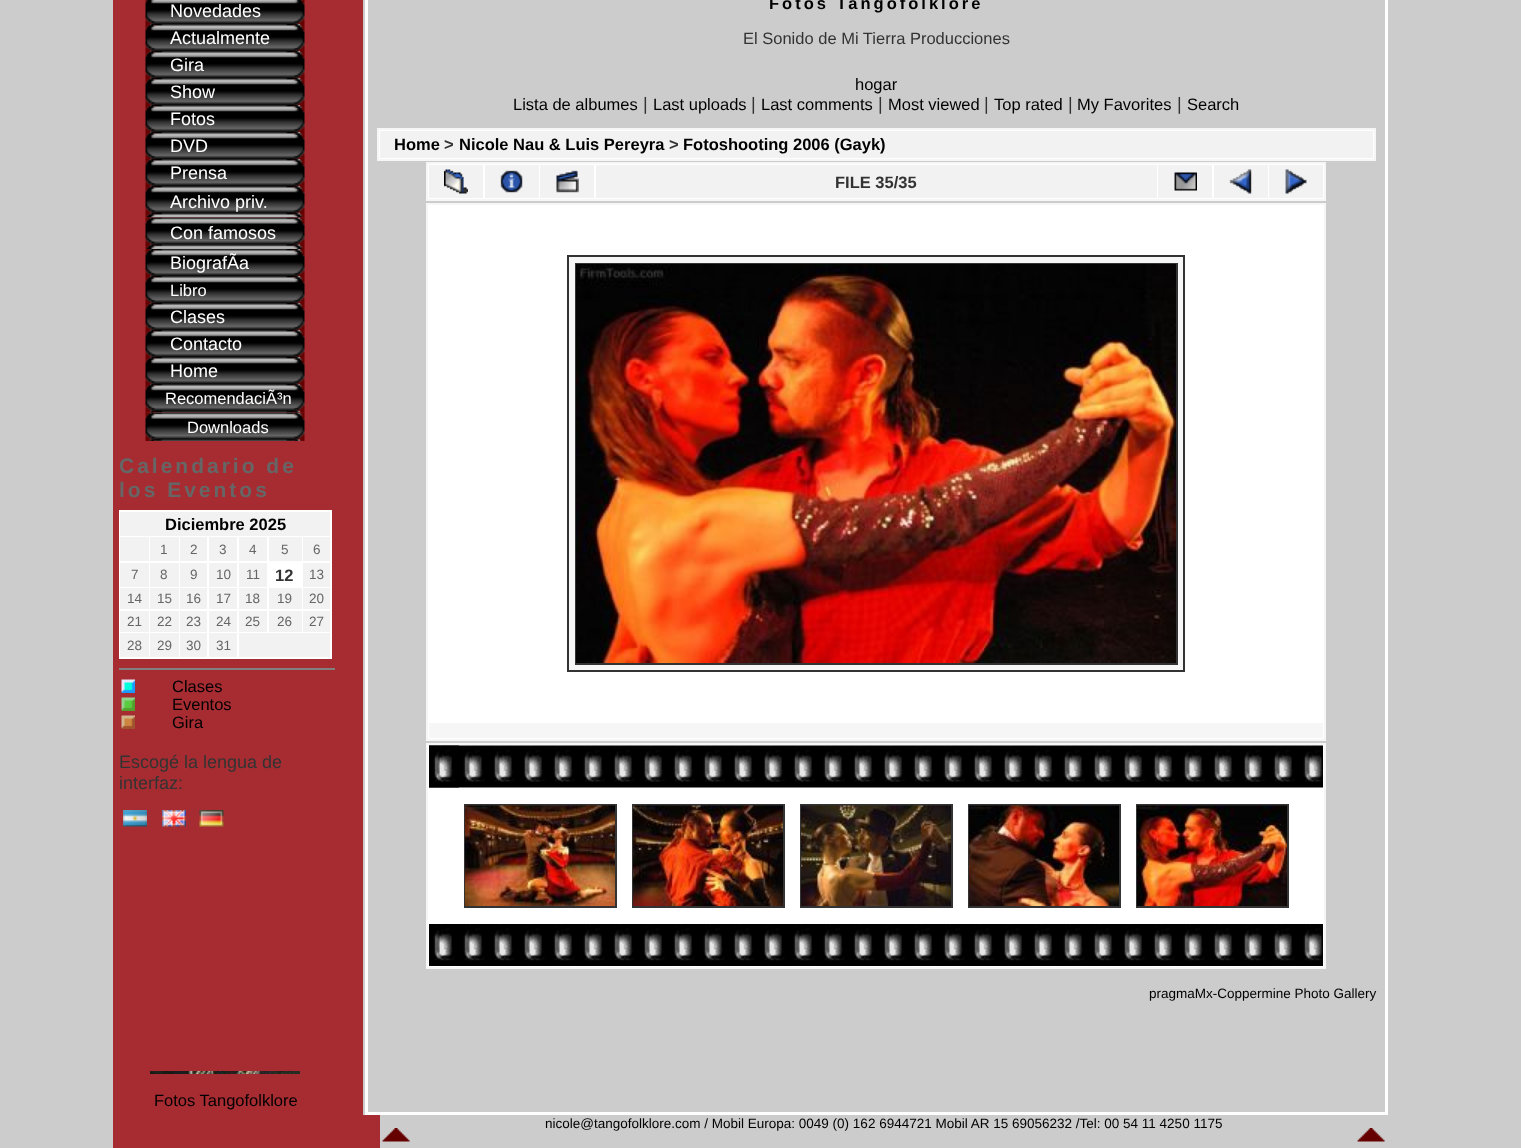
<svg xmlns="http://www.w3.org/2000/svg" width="1521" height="1148">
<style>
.a{font:18px Liberation Sans;fill:#fff}
.b{font:16.5px Liberation Sans;fill:#fff}
.c{font:bold 21px Liberation Sans;letter-spacing:3px;fill:#666}
.d{font:bold 16.5px Liberation Sans;fill:#000}
.e{font:13.5px Liberation Sans;fill:#666}
.f{font:bold 16.5px Liberation Sans;fill:#333}
.g{font:16.5px Liberation Sans;fill:#000}
.h{font:18px Liberation Sans;fill:#333}
.i{font:bold 16.5px Liberation Sans;letter-spacing:3px;fill:#000}
.j{font:16.5px Liberation Sans;fill:#333}
.k{font:13.5px Liberation Sans;fill:#000}
</style>
<rect width="100%" height="100%" fill="#ccc"/>
<path fill="#a72c32" d="M113 0h250v1115H113z"/>
<image href="1.png" x="145" y="0" width="160" height="24"/>
<image href="2.png" x="145" y="24" width="160" height="27"/>
<image href="2.png" x="145" y="51" width="160" height="27"/>
<image href="2.png" x="145" y="78" width="160" height="27"/>
<image href="2.png" x="145" y="105" width="160" height="27"/>
<image href="2.png" x="145" y="132" width="160" height="27"/>
<image href="2.png" x="145" y="159" width="160" height="27"/>
<image href="3.png" x="145" y="186" width="160" height="32"/>
<image href="4.png" x="145" y="217" width="160" height="32"/>
<image href="2.png" x="145" y="249" width="160" height="27"/>
<image href="2.png" x="145" y="276" width="160" height="27"/>
<image href="2.png" x="145" y="303" width="160" height="27"/>
<image href="2.png" x="145" y="330" width="160" height="27"/>
<image href="2.png" x="145" y="357" width="160" height="27"/>
<image href="5.png" x="145" y="384" width="160" height="29"/>
<image href="6.png" x="145" y="412" width="160" height="29"/>
<path fill="#fff" d="M119 510h213v149H119z"/>
<path fill="#f2f2f2" d="M120 512h210v24H120z"/>
<path fill="#f2f2f2" d="M120 537h29v24H120z"/>
<path fill="#f2f2f2" d="M150 537h29v24H150z"/>
<path fill="#f2f2f2" d="M180 537h27v24H180z"/>
<path fill="#f2f2f2" d="M209 537h28v24H209z"/>
<path fill="#f2f2f2" d="M239 537h28v24H239z"/>
<path fill="#f2f2f2" d="M269 537h33v24H269z"/>
<path fill="#f2f2f2" d="M303 537h27v24H303z"/>
<path fill="#f2f2f2" d="M120 563h29v24H120z"/>
<path fill="#f2f2f2" d="M150 563h29v24H150z"/>
<path fill="#f2f2f2" d="M180 563h27v24H180z"/>
<path fill="#f2f2f2" d="M209 563h28v24H209z"/>
<path fill="#f2f2f2" d="M239 563h28v24H239z"/>
<path fill="#f2f2f2" d="M303 563h27v24H303z"/>
<path fill="#f2f2f2" d="M120 588h29v21H120z"/>
<path fill="#f2f2f2" d="M150 588h29v21H150z"/>
<path fill="#f2f2f2" d="M180 588h27v21H180z"/>
<path fill="#f2f2f2" d="M209 588h28v21H209z"/>
<path fill="#f2f2f2" d="M239 588h28v21H239z"/>
<path fill="#f2f2f2" d="M269 588h33v21H269z"/>
<path fill="#f2f2f2" d="M303 588h27v21H303z"/>
<path fill="#f2f2f2" d="M120 611h29v21H120z"/>
<path fill="#f2f2f2" d="M150 611h29v21H150z"/>
<path fill="#f2f2f2" d="M180 611h27v21H180z"/>
<path fill="#f2f2f2" d="M209 611h28v21H209z"/>
<path fill="#f2f2f2" d="M239 611h28v21H239z"/>
<path fill="#f2f2f2" d="M269 611h33v21H269z"/>
<path fill="#f2f2f2" d="M303 611h27v21H303z"/>
<path fill="#f2f2f2" d="M120 633h29v24H120z"/>
<path fill="#f2f2f2" d="M150 633h29v24H150z"/>
<path fill="#f2f2f2" d="M180 633h27v24H180z"/>
<path fill="#f2f2f2" d="M209 633h28v24H209z"/>
<path fill="#f2f2f2" d="M239 633h91v24H239z"/>
<path fill="#808080" d="M119 668h216v2H119z"/>
<image href="7.png" x="121" y="679" width="14" height="14"/>
<image href="8.png" x="121" y="697" width="14" height="14"/>
<image href="9.png" x="121" y="715" width="14" height="14"/>
<image href="10.png" x="123" y="810" width="24" height="17"/>
<image href="11.png" x="162" y="810" width="24" height="17"/>
<image href="12.png" x="199" y="810" width="25" height="17"/>
<image href="13.png" x="150" y="1071" width="150" height="3"/>
<path fill="none" stroke="#fff" stroke-width="3" d="M366.5 -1.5h1020v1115H366.5z"/>
<path fill="#fff" stroke="#f6f6f6" stroke-width="2" d="M378 129h997v31H378z"/>
<path fill="#f2f2f2" d="M380 131h993v27H380z"/>
<path fill="#fff" stroke="#f6f6f6" stroke-width="2" d="M427 163h898v37H427z"/>
<path fill="#f2f2f2" d="M429 165h54v33H429z"/>
<image href="14.png" x="444" y="169" width="24" height="25"/>
<path fill="#f2f2f2" d="M485 165h54v33H485z"/>
<image href="15.png" x="500" y="170" width="23" height="23"/>
<path fill="#f2f2f2" d="M540 165h54v33H540z"/>
<image href="16.png" x="556" y="170" width="23" height="23"/>
<path fill="#f2f2f2" d="M596 165h561v33H596z"/>
<path fill="#f2f2f2" d="M1158 165h54v33H1158z"/>
<image href="17.png" x="1174" y="172" width="23" height="19"/>
<path fill="#f2f2f2" d="M1214 165h54v33H1214z"/>
<image href="18.png" x="1229" y="169" width="23" height="25"/>
<path fill="#f2f2f2" d="M1269 165h54v33H1269z"/>
<image href="19.png" x="1285" y="169" width="22" height="25"/>
<path fill="#fff" stroke="#f6f6f6" stroke-width="2" d="M427 204h898v536H427z"/>
<path fill="#f6f6f6" stroke="#333" stroke-width="2" d="M568 256h616v415H568z"/>
<path fill="none" stroke="#333" stroke-width="2" d="M576 264h601v400H576z"/>
<image href="20.png" x="576" y="264" width="600" height="399"/>
<path fill="#f6f6f6" d="M429 723h894v15H429z"/>
<path fill="#fff" stroke="#f6f6f6" stroke-width="2" d="M427 744h898v224H427z"/>
<image href="21.png" x="429" y="745" width="894" height="43"/>
<image href="22.png" x="429" y="745" width="30" height="43"/>
<path fill="none" stroke="#333" stroke-width="2" d="M465 805h151v102H465z"/>
<image href="23.png" x="465" y="805" width="150" height="101"/>
<path fill="none" stroke="#333" stroke-width="2" d="M633 805h151v102H633z"/>
<image href="24.png" x="633" y="805" width="150" height="101"/>
<path fill="none" stroke="#333" stroke-width="2" d="M801 805h151v102H801z"/>
<image href="25.png" x="801" y="805" width="150" height="101"/>
<path fill="none" stroke="#333" stroke-width="2" d="M969 805h151v102H969z"/>
<image href="26.png" x="969" y="805" width="150" height="101"/>
<path fill="none" stroke="#333" stroke-width="2" d="M1137 805h151v102H1137z"/>
<image href="27.png" x="1137" y="805" width="150" height="101"/>
<image href="28.png" x="429" y="924" width="894" height="42"/>
<image href="29.png" x="434" y="940" width="12" height="17"/>
<path fill="#a72c32" d="M113 1115h267v33H113z"/>
<image href="30.png" x="382" y="1128" width="28" height="14"/>
<image href="30.png" x="1357" y="1128" width="28" height="14"/>
<text class="a" x="170" y="17">Novedades</text>
<text class="a" x="170" y="44">Actualmente</text>
<text class="a" x="170" y="71">Gira</text>
<text class="a" x="170" y="98">Show</text>
<text class="a" x="170" y="125">Fotos</text>
<text class="a" x="170" y="152">DVD</text>
<text class="a" x="170" y="179">Prensa</text>
<text class="a" x="170" y="208">Archivo priv.</text>
<text class="a" x="170" y="239">Con famosos</text>
<text class="a" x="170" y="269">BiografÃa</text>
<text class="b" x="170" y="296">Libro</text>
<text class="a" x="170" y="323">Clases</text>
<text class="a" x="170" y="350">Contacto</text>
<text class="a" x="170" y="377">Home</text>
<text class="b" x="165" y="404">RecomendaciÃ³n</text>
<text class="b" x="187" y="433">Downloads</text>
<text class="c" x="119" y="473">Calendario de</text>
<text class="c" x="119" y="497">los Eventos</text>
<text class="d" x="165" y="530">Diciembre 2025</text>
<text class="e" x="160" y="554">1</text>
<text class="e" x="190" y="554">2</text>
<text class="e" x="219" y="554">3</text>
<text class="e" x="249" y="554">4</text>
<text class="e" x="281" y="554">5</text>
<text class="e" x="313" y="554">6</text>
<text class="e" x="131" y="579">7</text>
<text class="e" x="160" y="579">8</text>
<text class="e" x="190" y="579">9</text>
<text class="e" x="216" y="579">10</text>
<text class="e" x="246" y="579">11</text>
<text class="f" x="275" y="581">12</text>
<text class="e" x="309" y="579">13</text>
<text class="e" x="127" y="603">14</text>
<text class="e" x="157" y="603">15</text>
<text class="e" x="186" y="603">16</text>
<text class="e" x="216" y="603">17</text>
<text class="e" x="245" y="603">18</text>
<text class="e" x="277" y="603">19</text>
<text class="e" x="309" y="603">20</text>
<text class="e" x="127" y="626">21</text>
<text class="e" x="157" y="626">22</text>
<text class="e" x="186" y="626">23</text>
<text class="e" x="216" y="626">24</text>
<text class="e" x="245" y="626">25</text>
<text class="e" x="277" y="626">26</text>
<text class="e" x="309" y="626">27</text>
<text class="e" x="127" y="650">28</text>
<text class="e" x="157" y="650">29</text>
<text class="e" x="186" y="650">30</text>
<text class="e" x="216" y="650">31</text>
<text class="g" x="172" y="692">Clases</text>
<text class="g" x="172" y="710">Eventos</text>
<text class="g" x="172" y="728">Gira</text>
<text class="h" x="119" y="768">Escogé la lengua de</text>
<text class="h" x="119" y="789">interfaz:</text>
<text class="g" x="154" y="1106">Fotos Tangofolklore</text>
<text class="i" x="769" y="9">Fotos Tangofolklore</text>
<text class="j" x="743" y="44">El Sonido de Mi Tierra Producciones</text>
<text class="g" x="855" y="90">hogar</text>
<text class="g" x="513" y="110">Lista de albumes</text>
<text class="h" x="643" y="110">|</text>
<text class="g" x="653" y="110">Last uploads</text>
<text class="h" x="751" y="110">|</text>
<text class="g" x="761" y="110">Last comments</text>
<text class="h" x="878" y="110">|</text>
<text class="g" x="888" y="110">Most viewed</text>
<text class="h" x="984" y="110">|</text>
<text class="g" x="994" y="110">Top rated</text>
<text class="h" x="1068" y="110">|</text>
<text class="g" x="1077" y="110">My Favorites</text>
<text class="h" x="1177" y="110">|</text>
<text class="g" x="1187" y="110">Search</text>
<text class="d" x="394" y="150">Home</text>
<text class="f" x="444" y="150">&gt;</text>
<text class="d" x="459" y="150">Nicole Nau &amp; Luis Pereyra</text>
<text class="f" x="669" y="150">&gt;</text>
<text class="d" x="683" y="150">Fotoshooting 2006 (Gayk)</text>
<text class="f" x="835" y="188">FILE 35/35</text>
<text class="k" x="1149" y="998">pragmaMx-Coppermine Photo Gallery</text>
<text class="k" x="545" y="1128">nicole@tangofolklore.com / Mobil Europa: 0049 (0) 162 6944721 Mobil AR 15 69056232 /Tel: 00 54 11 4250 1175</text>
</svg>
